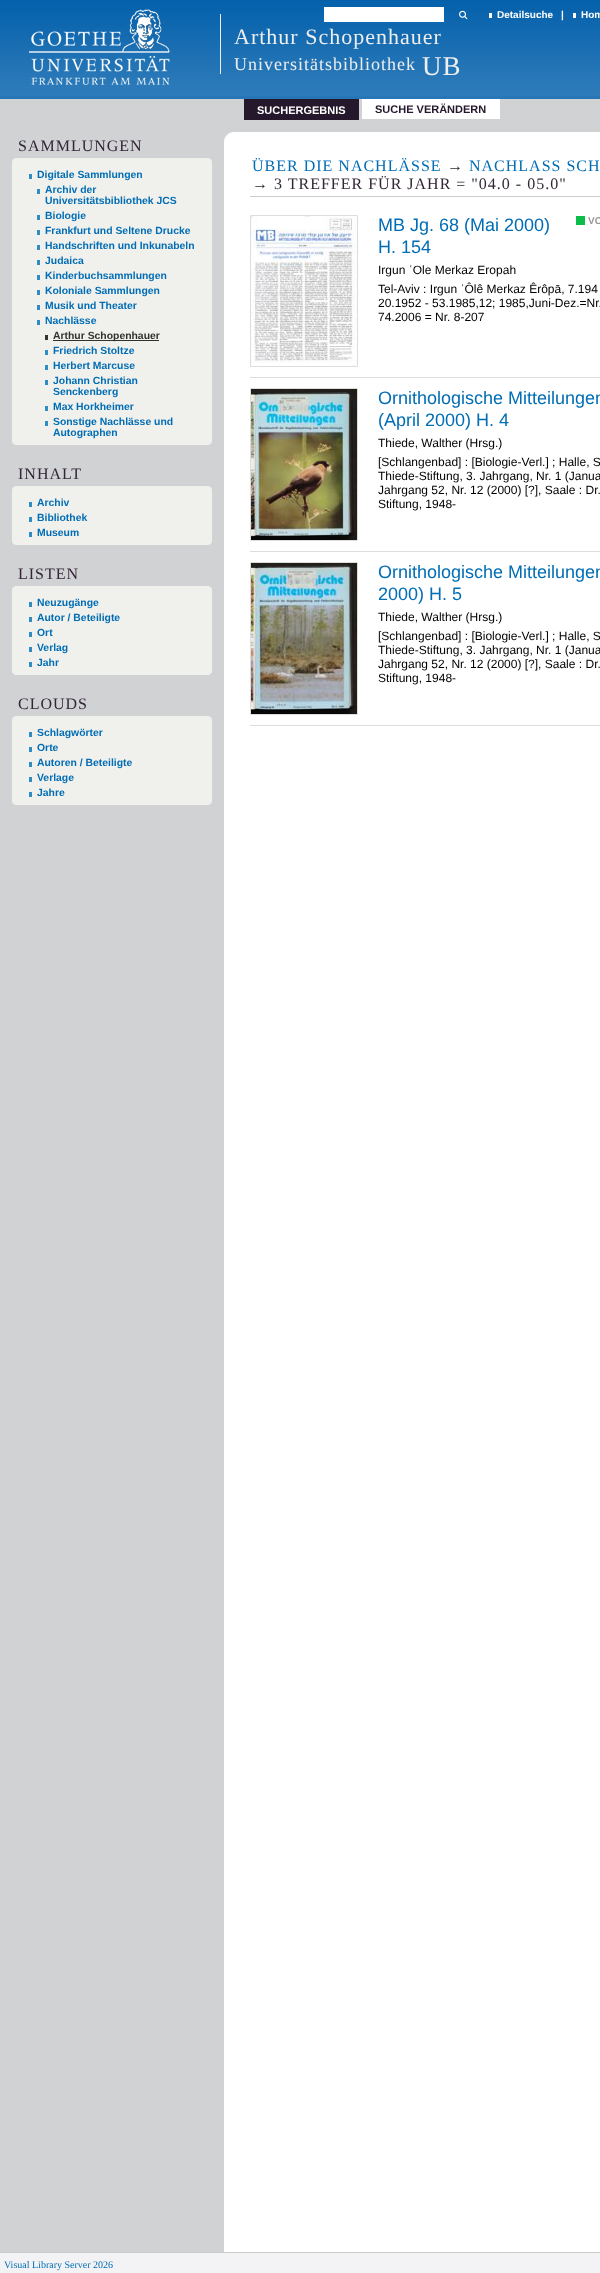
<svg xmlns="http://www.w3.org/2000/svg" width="600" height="2273">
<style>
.a{font:bold 10px Liberation Sans;fill:#fff}
.b{font:22px Liberation Serif;letter-spacing:1px;fill:#eee}
.c{font:18px Liberation Serif;letter-spacing:1px;fill:#eee}
.d{font:27px Liberation Serif;letter-spacing:1px;fill:#eee}
.e{font:bold 11px Liberation Sans;fill:#fff}
.f{font:bold 11px Liberation Sans;fill:#25182c}
.g{font:16px Liberation Serif;letter-spacing:1px;fill:#332636}
.h{font:bold 10.4px Liberation Sans;fill:#006db5}
.i{font:bold 10.4px Liberation Sans;fill:#303030}
.j{font:16px Liberation Serif;letter-spacing:1px;fill:#006db5}
.k{font:18px Liberation Sans;fill:#006db5}
.l{font:bold 10px Liberation Sans;fill:#999}
.m{font:12px Liberation Sans;fill:#000}
.n{font:10px Liberation Serif;fill:#006db5}
</style>
<rect width="100%" height="100%" fill="#2776b8"/>
<image href="1.png" x="0" y="0" width="600" height="96"/>
<image href="2.png" x="29" y="9" width="141" height="76"/>
<path fill="#fff" d="M324 7h120v15H324z"/>
<image href="3.png" x="459" y="10" width="9" height="10"/>
<path fill="#fff" d="M489 13h3v5H489z"/>
<path fill="#fff" d="M573 13h3v5H573z"/>
<path fill="#eee" d="M220 14h1v60H220z"/>
<path fill="#d1d2d4" d="M0 99h600v33H0z"/>
<path fill="#25182c" d="M244 99h115v21H244z"/>
<path fill="#fff" d="M362 99h138v20H362z"/>
<path fill="#d1d2d4" d="M0 132h234v2120H0z"/>
<rect fill="#f0f0ec" stroke="#f0f0ec" x="12.5" y="158.5" width="199" height="286" rx="3.5"/>
<path fill="#318cc6" d="M29 174h3v5H29z"/>
<path fill="#318cc6" d="M37 189h3v5H37z"/>
<path fill="#318cc6" d="M37 215h3v5H37z"/>
<path fill="#318cc6" d="M37 230h3v5H37z"/>
<path fill="#318cc6" d="M37 245h3v5H37z"/>
<path fill="#318cc6" d="M37 260h3v5H37z"/>
<path fill="#318cc6" d="M37 275h3v5H37z"/>
<path fill="#318cc6" d="M37 290h3v5H37z"/>
<path fill="#318cc6" d="M37 305h3v5H37z"/>
<path fill="#318cc6" d="M37 320h3v5H37z"/>
<path fill="#343434" d="M45 335h3v5H45z"/>
<path fill="#303030" d="M53 340h106v1H53z"/>
<path fill="#318cc6" d="M45 350h3v5H45z"/>
<path fill="#318cc6" d="M45 365h3v5H45z"/>
<path fill="#318cc6" d="M45 380h3v5H45z"/>
<path fill="#318cc6" d="M45 406h3v5H45z"/>
<path fill="#318cc6" d="M45 421h3v5H45z"/>
<rect fill="#f0f0ec" stroke="#f0f0ec" x="12.5" y="486.5" width="199" height="58" rx="3.5"/>
<path fill="#318cc6" d="M29 502h3v5H29z"/>
<path fill="#318cc6" d="M29 517h3v5H29z"/>
<path fill="#318cc6" d="M29 532h3v5H29z"/>
<rect fill="#f0f0ec" stroke="#f0f0ec" x="12.5" y="586.5" width="199" height="88" rx="3.5"/>
<path fill="#318cc6" d="M29 602h3v5H29z"/>
<path fill="#318cc6" d="M29 617h3v5H29z"/>
<path fill="#318cc6" d="M29 632h3v5H29z"/>
<path fill="#318cc6" d="M29 647h3v5H29z"/>
<path fill="#318cc6" d="M29 662h3v5H29z"/>
<rect fill="#f0f0ec" stroke="#f0f0ec" x="12.5" y="716.5" width="199" height="88" rx="3.5"/>
<path fill="#318cc6" d="M29 732h3v5H29z"/>
<path fill="#318cc6" d="M29 747h3v5H29z"/>
<path fill="#318cc6" d="M29 762h3v5H29z"/>
<path fill="#318cc6" d="M29 777h3v5H29z"/>
<path fill="#318cc6" d="M29 792h3v5H29z"/>
<path fill="#fff" d="M234 132h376v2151h-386v-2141c0-5.5 4.5-10 10-10z"/>
<path fill="#ccc" d="M250 196h350v1H250z"/>
<path fill="none" stroke="#ddd" d="M250.5 215.5h107v151H250.5z"/>
<image href="4.png" x="251" y="216" width="106" height="150"/>
<path fill="#0bbe49" d="M576 216h9v9H576z"/>
<path fill="#ddd" d="M250 377h350v1H250z"/>
<path fill="none" stroke="#ddd" d="M250.5 388.5h107v152H250.5z"/>
<image href="5.png" x="251" y="389" width="106" height="151"/>
<path fill="#ddd" d="M250 551h350v1H250z"/>
<path fill="#ddd" d="M250 725h350v1H250z"/>
<path fill="none" stroke="#ddd" d="M250.5 562.5h107v152H250.5z"/>
<image href="6.png" x="251" y="563" width="106" height="151"/>
<path fill="#f3f3f6" d="M0 2253h600v20H0z"/>
<path fill="#ccc" d="M0 2252h600v1H0z"/>
<text class="a" x="497" y="18">Detailsuche</text>
<text class="a" x="561" y="18">|</text>
<text class="a" x="581" y="18">Hom</text>
<text class="b" x="234" y="44">Arthur Schopenhauer</text>
<text class="c" x="234" y="70">Universitätsbibliothek</text>
<text class="d" x="422" y="75">UB</text>
<text class="e" x="257" y="114">SUCHERGEBNIS</text>
<text class="f" x="375" y="113">SUCHE VERÄNDERN</text>
<text class="g" x="18" y="151">SAMMLUNGEN</text>
<text class="h" x="37" y="178">Digitale Sammlungen</text>
<text class="h" x="45" y="193">Archiv der</text>
<text class="h" x="45" y="204">Universitätsbibliothek JCS</text>
<text class="h" x="45" y="219">Biologie</text>
<text class="h" x="45" y="234">Frankfurt und Seltene Drucke</text>
<text class="h" x="45" y="249">Handschriften und Inkunabeln</text>
<text class="h" x="45" y="264">Judaica</text>
<text class="h" x="45" y="279">Kinderbuchsammlungen</text>
<text class="h" x="45" y="294">Koloniale Sammlungen</text>
<text class="h" x="45" y="309">Musik und Theater</text>
<text class="h" x="45" y="324">Nachlässe</text>
<text class="i" x="53" y="339">Arthur Schopenhauer</text>
<text class="h" x="53" y="354">Friedrich Stoltze</text>
<text class="h" x="53" y="369">Herbert Marcuse</text>
<text class="h" x="53" y="384">Johann Christian</text>
<text class="h" x="53" y="395">Senckenberg</text>
<text class="h" x="53" y="410">Max Horkheimer</text>
<text class="h" x="53" y="425">Sonstige Nachlässe und</text>
<text class="h" x="53" y="436">Autographen</text>
<text class="g" x="18" y="479">INHALT</text>
<text class="h" x="37" y="506">Archiv</text>
<text class="h" x="37" y="521">Bibliothek</text>
<text class="h" x="37" y="536">Museum</text>
<text class="g" x="18" y="579">LISTEN</text>
<text class="h" x="37" y="606">Neuzugänge</text>
<text class="h" x="37" y="621">Autor / Beteiligte</text>
<text class="h" x="37" y="636">Ort</text>
<text class="h" x="37" y="651">Verlag</text>
<text class="h" x="37" y="666">Jahr</text>
<text class="g" x="18" y="709">CLOUDS</text>
<text class="h" x="37" y="736">Schlagwörter</text>
<text class="h" x="37" y="751">Orte</text>
<text class="h" x="37" y="766">Autoren / Beteiligte</text>
<text class="h" x="37" y="781">Verlage</text>
<text class="h" x="37" y="796">Jahre</text>
<text class="j" x="252" y="171">ÜBER DIE NACHLÄSSE</text>
<text class="g" x="447" y="171">→</text>
<text class="j" x="469" y="171">NACHLASS SCH</text>
<text class="g" x="252" y="189">→ 3 TREFFER FÜR JAHR = "04.0 - 05.0"</text>
<text class="k" x="378" y="231">MB Jg. 68 (Mai 2000)</text>
<text class="k" x="378" y="253">H. 154</text>
<text class="l" x="588" y="224">VO</text>
<text class="m" x="378" y="274">Irgun ʿOle Merkaz Eropah</text>
<text class="m" x="378" y="293">Tel-Aviv : Irgun ʿÔlê Merkaz Êrôpā, 7.194</text>
<text class="m" x="378" y="307">20.1952 - 53.1985,12; 1985,Juni-Dez.=Nr.</text>
<text class="m" x="378" y="321">74.2006 = Nr. 8-207</text>
<text class="k" x="378" y="404">Ornithologische Mitteilungen</text>
<text class="k" x="378" y="426">(April 2000) H. 4</text>
<text class="m" x="378" y="447">Thiede, Walther (Hrsg.)</text>
<text class="m" x="378" y="466">[Schlangenbad] : [Biologie-Verl.] ; Halle, S</text>
<text class="m" x="378" y="480">Thiede-Stiftung, 3. Jahrgang, Nr. 1 (Janua</text>
<text class="m" x="378" y="494">Jahrgang 52, Nr. 12 (2000) [?], Saale : Dr.</text>
<text class="m" x="378" y="508">Stiftung, 1948-</text>
<text class="k" x="378" y="578">Ornithologische Mitteilungen</text>
<text class="k" x="378" y="600">2000) H. 5</text>
<text class="m" x="378" y="621">Thiede, Walther (Hrsg.)</text>
<text class="m" x="378" y="640">[Schlangenbad] : [Biologie-Verl.] ; Halle, S</text>
<text class="m" x="378" y="654">Thiede-Stiftung, 3. Jahrgang, Nr. 1 (Janua</text>
<text class="m" x="378" y="668">Jahrgang 52, Nr. 12 (2000) [?], Saale : Dr.</text>
<text class="m" x="378" y="682">Stiftung, 1948-</text>
<text class="n" x="4" y="2268">Visual Library Server 2026</text>
</svg>
